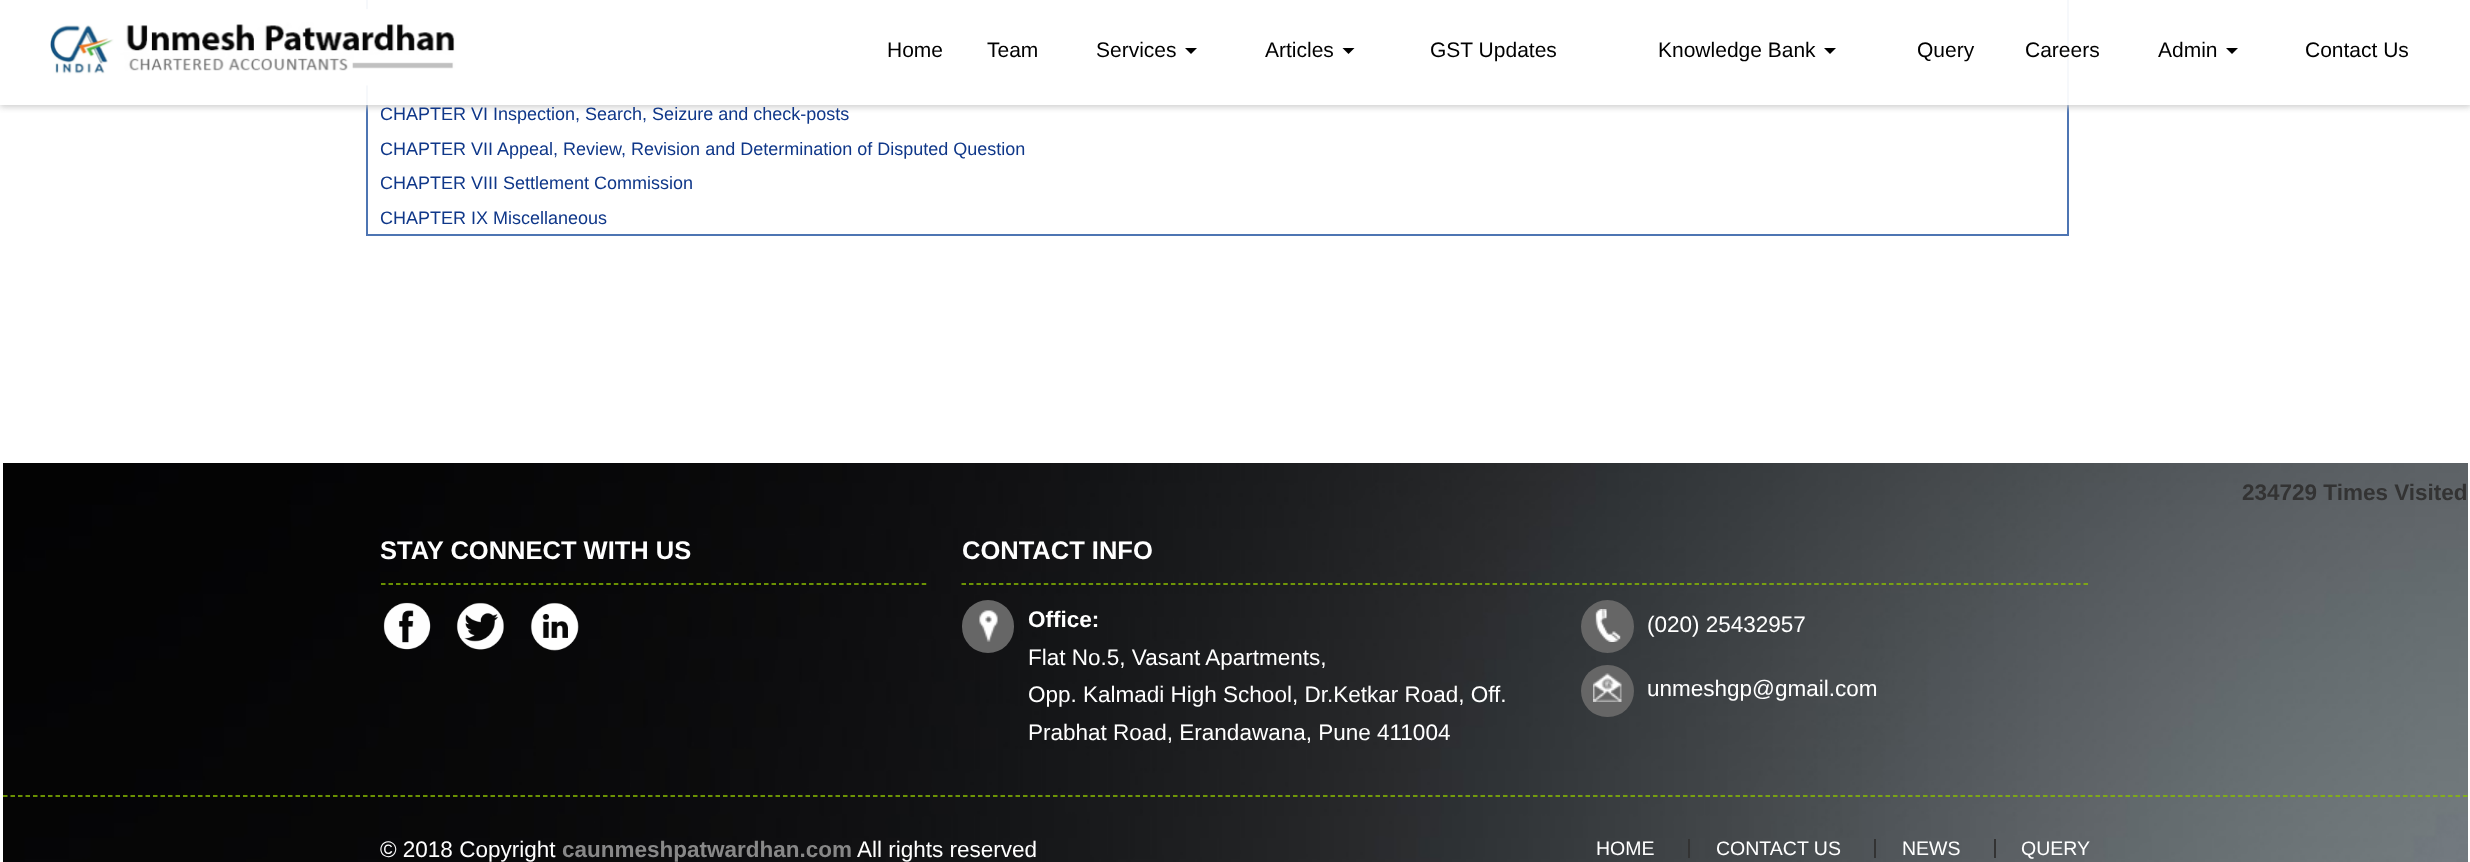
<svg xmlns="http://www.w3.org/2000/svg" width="2470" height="862">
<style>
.a{font:21px Liberation Sans;fill:#000}
.b{font:18px Liberation Sans;fill:#0f3789}
.c{font:bold 22.5px Liberation Sans;fill:#333}
.d{font:bold 25.5px Liberation Sans;fill:#fff}
.e{font:bold 22.5px Liberation Sans;fill:#fff}
.f{font:22.5px Liberation Sans;fill:#fff}
.g{font:bold 22.5px Liberation Sans;fill:#888}
.h{font:19.5px Liberation Sans;fill:#fff}
</style>
<defs>
<clipPath id="clip1"><path d="M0 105h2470v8H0z"/></clipPath>
</defs>
<rect width="100%" height="100%" fill="#fff"/>
<path fill="none" stroke="#4e75b3" stroke-width="2" d="M367 -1h1701v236H367z"/>
<g clip-path="url(#clip1)">
<path fill="#ccc" filter="blur(3px)" d="M0 2h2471v105H0z"/>
</g>
<path fill="#fffffff2" d="M366 0h1703v105H366z"/>
<image href="1.png" x="50" y="9" width="414" height="77"/>
<path fill="#000" d="M1185 48h12l-6 6z"/>
<path fill="#000" d="M1342.5 48h12l-6 6z"/>
<path fill="#000" d="M1824 48h12l-6 6z"/>
<path fill="#000" d="M2226 48h12l-6 6z"/>
<image href="2.png" x="3" y="463" width="2465" height="399"/>
<path fill="none" stroke="#8abf00" stroke-width="1.5" stroke-dasharray="4.5 3.01" d="M381 584h546"/>
<image href="3.png" x="383" y="602" width="48" height="48"/>
<image href="4.png" x="456" y="602" width="48" height="48"/>
<image href="5.png" x="530" y="602" width="49" height="49"/>
<path fill="none" stroke="#8abf00" stroke-width="1.5" stroke-dasharray="4.5 2.98" d="M961.5 584h1128"/>
<rect fill="#666" x="962" y="600" width="52" height="53" rx="26"/>
<image href="6.png" x="979" y="610" width="19" height="32"/>
<circle fill="#666" cx="1607.5" cy="626.5" r="26.5"/>
<image href="7.png" x="1595" y="609" width="26" height="33"/>
<rect fill="#666" x="1581" y="665" width="53" height="52" rx="26"/>
<image href="8.png" x="1593" y="673" width="29" height="29"/>
<path fill="none" stroke="#8abf00" stroke-width="1.5" stroke-dasharray="4.5 3" d="M3 796h2464.5"/>
<path fill="#333" d="M1688 839h2v19H1688z"/>
<path fill="#333" d="M1874 839h2v19H1874z"/>
<path fill="#333" d="M1994 839h2v19H1994z"/>
<text class="a" x="887" y="57">Home</text>
<text class="a" x="987" y="57">Team</text>
<text class="a" x="1096" y="57">Services</text>
<text class="a" x="1265" y="57">Articles</text>
<text class="a" x="1430" y="57">GST Updates</text>
<text class="a" x="1658" y="57">Knowledge Bank</text>
<text class="a" x="1917" y="57">Query</text>
<text class="a" x="2025" y="57">Careers</text>
<text class="a" x="2158" y="57">Admin</text>
<text class="a" x="2305" y="57">Contact Us</text>
<text class="b" x="380" y="120">CHAPTER VI Inspection, Search, Seizure and check-posts</text>
<text class="b" x="380" y="155">CHAPTER VII Appeal, Review, Revision and Determination of Disputed Question</text>
<text class="b" x="380" y="189">CHAPTER VIII Settlement Commission</text>
<text class="b" x="380" y="224">CHAPTER IX Miscellaneous</text>
<text class="c" x="2242" y="500">234729 Times Visited</text>
<text class="d" x="380" y="559">STAY CONNECT WITH US</text>
<text class="d" x="962" y="559">CONTACT INFO</text>
<text class="e" x="1028" y="627">Office:</text>
<text class="f" x="1028" y="665">Flat No.5, Vasant Apartments,</text>
<text class="f" x="1028" y="702">Opp. Kalmadi High School, Dr.Ketkar Road, Off.</text>
<text class="f" x="1028" y="740">Prabhat Road, Erandawana, Pune 411004</text>
<text class="f" x="1647" y="632">(020) 25432957</text>
<text class="f" x="1647" y="696">unmeshgp@gmail.com</text>
<text class="f" x="380" y="857">© 2018 Copyright</text>
<text class="g" x="562" y="857">caunmeshpatwardhan.com</text>
<text class="f" x="857" y="857">All rights reserved</text>
<text class="h" x="1596" y="855">HOME</text>
<text class="h" x="1716" y="855">CONTACT US</text>
<text class="h" x="1902" y="855">NEWS</text>
<text class="h" x="2021" y="855">QUERY</text>
</svg>
